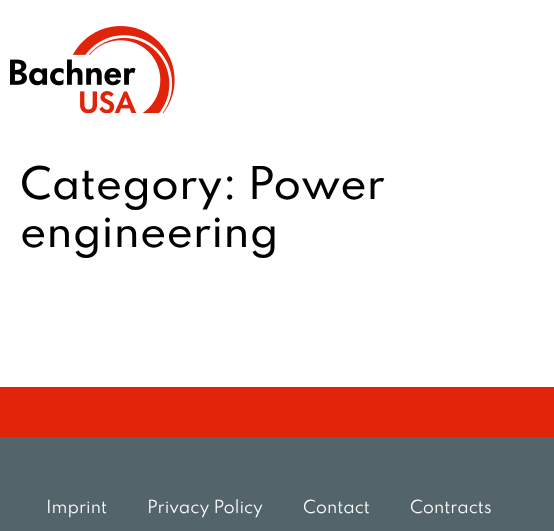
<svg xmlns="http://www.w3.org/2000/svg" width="554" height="531">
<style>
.a{font:500 40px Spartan;fill:#000}
.b{font:16px Spartan;fill:#fff}
</style>
<rect width="100%" height="100%" fill="#fff"/>
<image href="1.png" x="10" y="26" width="165" height="87"/>
<path fill="#e02309" d="M0 387h554v50H0z"/>
<path fill="#54646b" d="M0 437h554v94H0z"/>
<text class="a" x="20" y="199">Category: Power</text>
<text class="a" x="20" y="247">engineering</text>
<text class="b" x="46" y="513">Imprint</text>
<text class="b" x="147" y="513">Privacy Policy</text>
<text class="b" x="303" y="513">Contact</text>
<text class="b" x="410" y="513">Contracts</text>
</svg>
